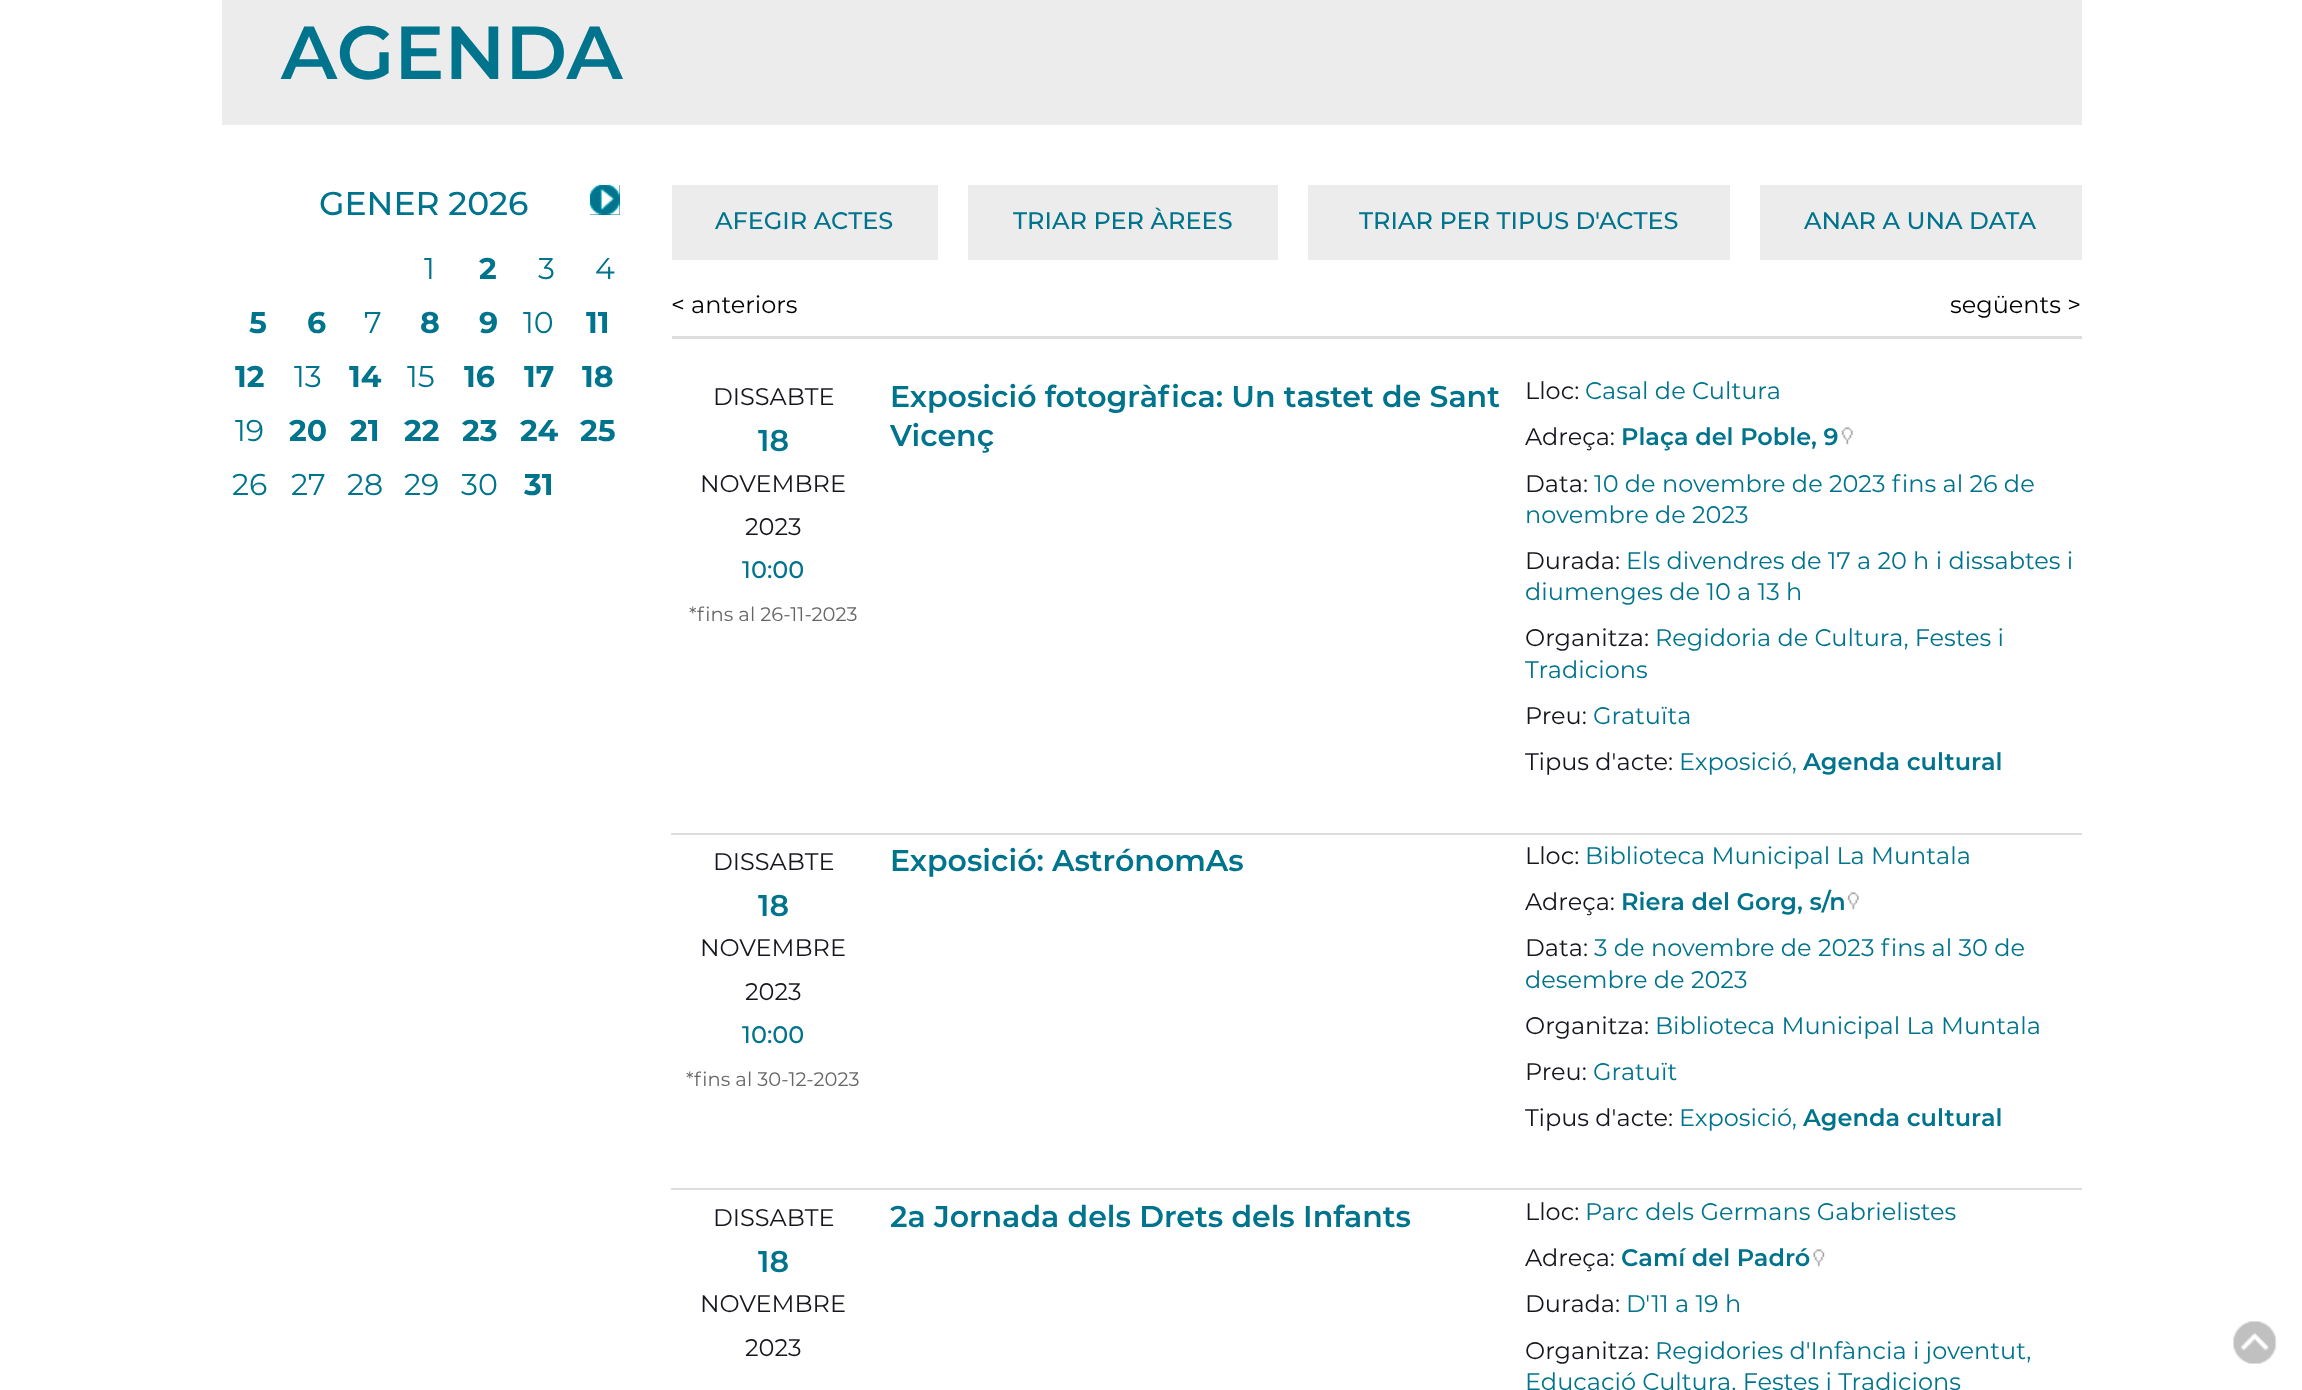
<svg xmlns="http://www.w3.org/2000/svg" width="2302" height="1390">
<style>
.a{font:600 75px Montserrat;fill:#00738d}
.b{font:500 33px Montserrat;fill:#00738d}
.c{font:30px Montserrat;fill:#00738d}
.d{font:bold 30px Montserrat;fill:#00738d}
.e{font:500 24px Montserrat;fill:#00738d}
.f{font:24px Montserrat;fill:#000}
.g{font:24px Montserrat;fill:#15161e}
.h{font:600 30px Montserrat;fill:#00738d}
.i{font:19.5px Montserrat;fill:#666}
.j{font:24px Montserrat;fill:#00738d}
.k{font:600 24px Montserrat;fill:#00738d}
</style>
<rect width="100%" height="100%" fill="#fff"/>
<path fill="#ececec" d="M222 0h1860v125H222z"/>
<path fill="#00738d" d="M590 185h30v30H590z"/>
<image href="1.png" x="589" y="184" width="31" height="31"/>
<path fill="#ececec" d="M672 185h266v75H672z"/>
<path fill="#ececec" d="M968 185h310v75H968z"/>
<path fill="#ececec" d="M1308 185h422v75H1308z"/>
<path fill="#ececec" d="M1760 185h322v75H1760z"/>
<path fill="#ddd" d="M672 336h1410v3H672z"/>
<image href="2.png" x="1841" y="427" width="12" height="18"/>
<path fill="#ddd" d="M671 833h1411v2H671z"/>
<image href="2.png" x="1847" y="892" width="12" height="18"/>
<path fill="#ddd" d="M671 1188h1411v2H671z"/>
<image href="3.png" x="1813" y="1249" width="12" height="18"/>
<image href="4.png" x="2233" y="1321" width="44" height="43"/>
<text class="a" x="281" y="79">AGENDA</text>
<text class="b" x="319" y="215">GENER 2026</text>
<text class="c" x="424" y="279">1</text>
<text class="d" x="479" y="279">2</text>
<text class="c" x="538" y="279">3</text>
<text class="c" x="595" y="279">4</text>
<text class="d" x="249" y="333">5</text>
<text class="d" x="307" y="333">6</text>
<text class="c" x="364" y="333">7</text>
<text class="d" x="420" y="333">8</text>
<text class="d" x="479" y="333">9</text>
<text class="c" x="523" y="333">10</text>
<text class="d" x="586" y="333">11</text>
<text class="d" x="235" y="387">12</text>
<text class="c" x="294" y="387">13</text>
<text class="d" x="349" y="387">14</text>
<text class="c" x="407" y="387">15</text>
<text class="d" x="464" y="387">16</text>
<text class="d" x="524" y="387">17</text>
<text class="d" x="582" y="387">18</text>
<text class="c" x="235" y="441">19</text>
<text class="d" x="289" y="441">20</text>
<text class="d" x="350" y="441">21</text>
<text class="d" x="404" y="441">22</text>
<text class="d" x="462" y="441">23</text>
<text class="d" x="520" y="441">24</text>
<text class="d" x="580" y="441">25</text>
<text class="c" x="232" y="495">26</text>
<text class="c" x="291" y="495">27</text>
<text class="c" x="347" y="495">28</text>
<text class="c" x="404" y="495">29</text>
<text class="c" x="461" y="495">30</text>
<text class="d" x="524" y="495">31</text>
<text class="e" x="715" y="229">AFEGIR ACTES</text>
<text class="e" x="1013" y="229">TRIAR PER ÀREES</text>
<text class="e" x="1359" y="229">TRIAR PER TIPUS D'ACTES</text>
<text class="e" x="1804" y="229">ANAR A UNA DATA</text>
<text class="f" x="671" y="313">&lt; anteriors</text>
<text class="f" x="1950" y="313">següents &gt;</text>
<text class="g" x="713" y="405">DISSABTE</text>
<text class="h" x="758" y="451">18</text>
<text class="g" x="700" y="492">NOVEMBRE</text>
<text class="g" x="745" y="535">2023</text>
<text class="e" x="742" y="578">10:00</text>
<text class="i" x="689" y="621">*fins al 26-11-2023</text>
<text class="h" x="890" y="407">Exposició fotogràfica: Un tastet de Sant</text>
<text class="h" x="890" y="446">Vicenç</text>
<text class="g" x="1525" y="399">Lloc:</text>
<text class="j" x="1585" y="399">Casal de Cultura</text>
<text class="g" x="1525" y="445">Adreça:</text>
<text class="k" x="1621" y="445">Plaça del Poble, 9</text>
<text class="g" x="1525" y="492">Data:</text>
<text class="j" x="1594" y="492">10 de novembre de 2023 fins al 26 de</text>
<text class="j" x="1525" y="523">novembre de 2023</text>
<text class="g" x="1525" y="569">Durada:</text>
<text class="j" x="1626" y="569">Els divendres de 17 a 20 h i dissabtes i</text>
<text class="j" x="1525" y="600">diumenges de 10 a 13 h</text>
<text class="g" x="1525" y="646">Organitza:</text>
<text class="j" x="1655" y="646">Regidoria de Cultura, Festes i</text>
<text class="j" x="1525" y="678">Tradicions</text>
<text class="g" x="1525" y="724">Preu:</text>
<text class="j" x="1593" y="724">Gratuïta</text>
<text class="g" x="1525" y="770">Tipus d'acte:</text>
<text class="j" x="1679" y="770">Exposició,</text>
<text class="k" x="1803" y="770">Agenda cultural</text>
<text class="g" x="713" y="870">DISSABTE</text>
<text class="h" x="758" y="916">18</text>
<text class="g" x="700" y="956">NOVEMBRE</text>
<text class="g" x="745" y="1000">2023</text>
<text class="e" x="742" y="1043">10:00</text>
<text class="i" x="686" y="1086">*fins al 30-12-2023</text>
<text class="h" x="890" y="871">Exposició: AstrónomAs</text>
<text class="g" x="1525" y="864">Lloc:</text>
<text class="j" x="1585" y="864">Biblioteca Municipal La Muntala</text>
<text class="g" x="1525" y="910">Adreça:</text>
<text class="k" x="1621" y="910">Riera del Gorg, s/n</text>
<text class="g" x="1525" y="956">Data:</text>
<text class="j" x="1594" y="956">3 de novembre de 2023 fins al 30 de</text>
<text class="j" x="1525" y="988">desembre de 2023</text>
<text class="g" x="1525" y="1034">Organitza:</text>
<text class="j" x="1655" y="1034">Biblioteca Municipal La Muntala</text>
<text class="g" x="1525" y="1080">Preu:</text>
<text class="j" x="1593" y="1080">Gratuït</text>
<text class="g" x="1525" y="1126">Tipus d'acte:</text>
<text class="j" x="1679" y="1126">Exposició,</text>
<text class="k" x="1803" y="1126">Agenda cultural</text>
<text class="g" x="713" y="1226">DISSABTE</text>
<text class="h" x="758" y="1272">18</text>
<text class="g" x="700" y="1312">NOVEMBRE</text>
<text class="g" x="745" y="1356">2023</text>
<text class="h" x="890" y="1227">2a Jornada dels Drets dels Infants</text>
<text class="g" x="1525" y="1220">Lloc:</text>
<text class="j" x="1585" y="1220">Parc dels Germans Gabrielistes</text>
<text class="g" x="1525" y="1266">Adreça:</text>
<text class="k" x="1621" y="1266">Camí del Padró</text>
<text class="g" x="1525" y="1312">Durada:</text>
<text class="j" x="1626" y="1312">D'11 a 19 h</text>
<text class="g" x="1525" y="1359">Organitza:</text>
<text class="j" x="1655" y="1359">Regidories d'Infància i joventut,</text>
<text class="j" x="1525" y="1390">Educació Cultura, Festes i Tradicions</text>
</svg>
